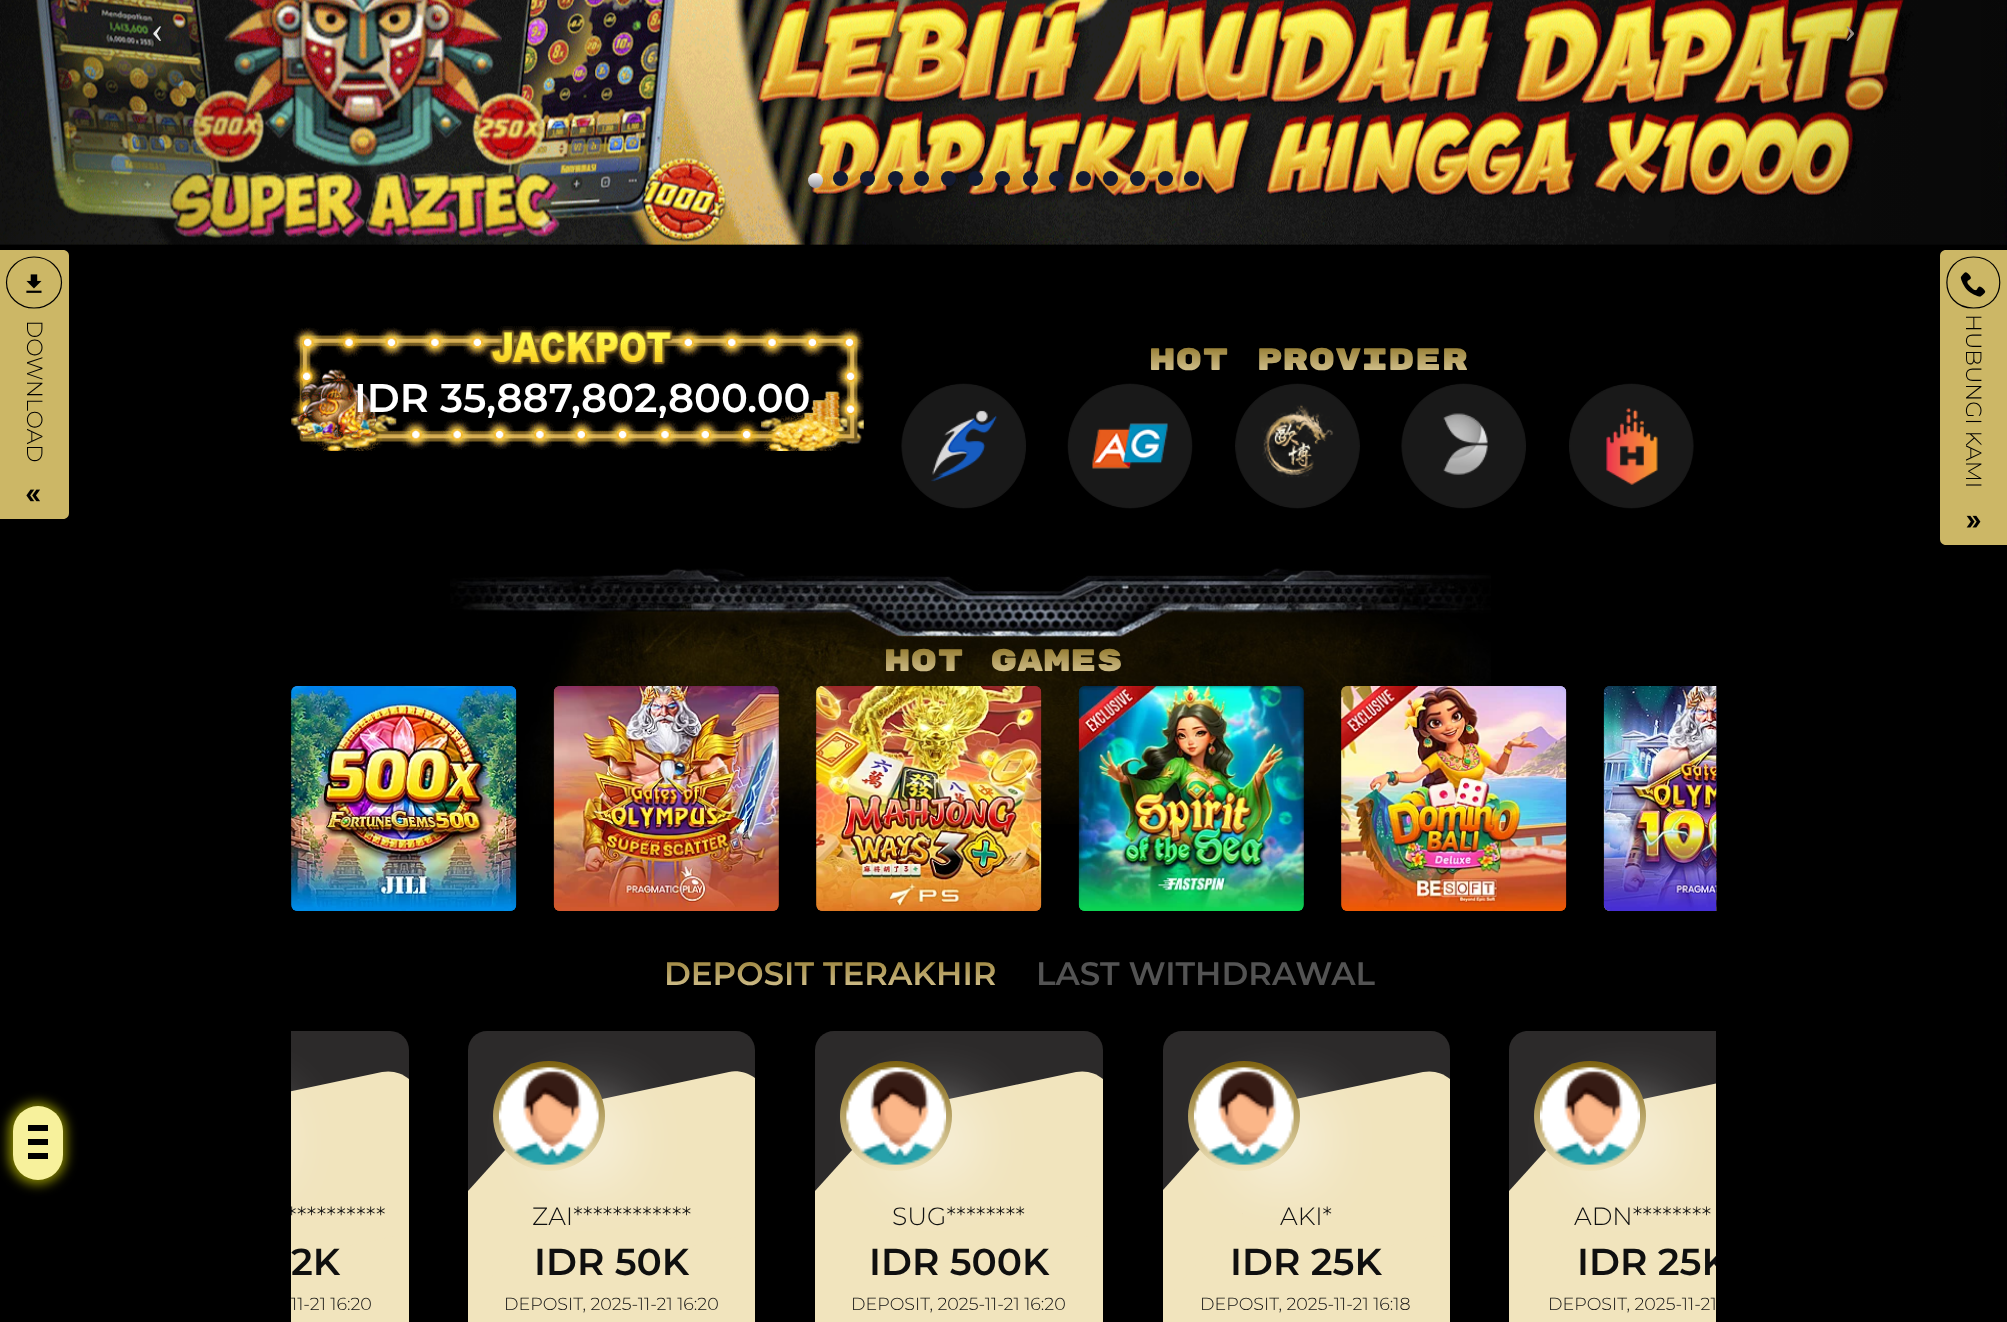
<svg xmlns="http://www.w3.org/2000/svg" width="2007" height="1322">
<style>
.a{font:300 22px Montserrat;fill:#000}
.b{font:37.5px Liberation Serif;fill:#e9e9e8}
.c{font:37.5px Liberation Serif;fill:#999086}
.d{font:31.25px Rubik Mono One;fill:url(#g7)}
.e{font:600 40px Montserrat;fill:#fff}
.f{font:31.25px Rubik Mono One;fill:url(#g8)}
.g{font:600 32.5px Montserrat;fill:url(#g9)}
.h{font:600 32.5px Montserrat;fill:#535353}
.i{font:300 25px Montserrat;fill:#0f0f0f}
.j{font:600 37.5px Montserrat;fill:#0f0f0f}
.k{font:300 17.5px Montserrat;fill:#0f0f0f}
</style>
<defs>
<linearGradient id="g1" gradientUnits="userSpaceOnUse" x1="0" y1="20" x2="301" y2="20"><stop offset="0" stop-color="#000" stop-opacity="0.45"/><stop offset="1" stop-color="#000" stop-opacity="0"/></linearGradient>
<linearGradient id="g2" gradientUnits="userSpaceOnUse" x1="1706" y1="20" x2="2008" y2="20"><stop offset="0" stop-color="#000" stop-opacity="0"/><stop offset="1" stop-color="#000" stop-opacity="0.25"/></linearGradient>
<linearGradient id="g3" gradientUnits="userSpaceOnUse" x1="815" y1="173" x2="815" y2="188"><stop offset="0" stop-color="#fff"/><stop offset="1" stop-color="#90919b"/></linearGradient>
<clipPath id="clip1"><path d="M291 1019h1425v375H291z"/></clipPath>
<clipPath id="clip2"><path d="M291 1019h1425v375H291z"/></clipPath>
<linearGradient id="g4" gradientUnits="userSpaceOnUse" x1="549" y1="1061" x2="549" y2="1171"><stop offset="0" stop-color="#7e620f"/><stop offset="1" stop-color="#f1e4bd"/></linearGradient>
<linearGradient id="g5" gradientUnits="userSpaceOnUse" x1="896" y1="1061" x2="896" y2="1171"><stop offset="0" stop-color="#7e620f"/><stop offset="1" stop-color="#f1e4bd"/></linearGradient>
<linearGradient id="g6" gradientUnits="userSpaceOnUse" x1="1244" y1="1061" x2="1244" y2="1171"><stop offset="0" stop-color="#7e620f"/><stop offset="1" stop-color="#f1e4bd"/></linearGradient>
<linearGradient id="g7" gradientUnits="userSpaceOnUse" x1="1308" y1="337" x2="1308" y2="384"><stop offset="0" stop-color="#7e620f"/><stop offset="1" stop-color="#f1e4bd"/></linearGradient>
<linearGradient id="g8" gradientUnits="userSpaceOnUse" x1="1004" y1="639" x2="1004" y2="686"><stop offset="0" stop-color="#7e620f"/><stop offset="1" stop-color="#f1e4bd"/></linearGradient>
<linearGradient id="g9" gradientUnits="userSpaceOnUse" x1="830" y1="942" x2="830" y2="1006"><stop offset="0" stop-color="#7e620f"/><stop offset="1" stop-color="#f1e4bd"/></linearGradient>
<linearGradient id="g10" gradientUnits="userSpaceOnUse" x1="1590" y1="1061" x2="1590" y2="1171"><stop offset="0" stop-color="#7e620f"/><stop offset="1" stop-color="#f1e4bd"/></linearGradient>
</defs>
<rect width="100%" height="100%" fill="#000"/>
<path fill="#ccb766" d="M0 250h63c3.5 0 6 2.5 6 6v257c0 3.5-2.5 6-6 6h-63z"/>
<path fill="none" stroke="#000" stroke-width="1.2" d="M34 257c15.5 0 27.5 11.5 27.5 25.5c0 14-12 25.5-27.5 25.5c-15 0-27.5-11.5-27.5-25.5c0-14 12.5-25.5 27.5-25.5z"/>
<image href="1.png" x="26" y="274" width="16" height="19"/>
<image href="2.png" x="26" y="489" width="14" height="13"/>
<image href="3.png" x="0" y="0" width="2007" height="245"/>
<path fill="url(#g1)" d="M0 0h287v245H0z"/>
<path fill="url(#g2)" d="M1732 0h275v244H1732z"/>
<circle fill="url(#g3)" cx="815.5" cy="180.5" r="7.5"/>
<circle fill="#131b33" cx="840.5" cy="178.5" r="7.5"/>
<circle fill="#131b33" cx="867.5" cy="178.5" r="7.5"/>
<circle fill="#131b33" cx="895.5" cy="178.5" r="7.5"/>
<circle fill="#131b33" cx="921.5" cy="178.5" r="7.5"/>
<circle fill="#131b33" cx="948.5" cy="178.5" r="7.5"/>
<circle fill="#131b33" cx="975.5" cy="178.5" r="7.5"/>
<circle fill="#131b33" cx="1002.5" cy="178.5" r="7.5"/>
<circle fill="#131b33" cx="1030.5" cy="178.5" r="7.5"/>
<circle fill="#131b33" cx="1056.5" cy="178.5" r="7.5"/>
<circle fill="#131b33" cx="1083.5" cy="178.5" r="7.5"/>
<circle fill="#131b33" cx="1110.5" cy="178.5" r="7.5"/>
<circle fill="#131b33" cx="1137.5" cy="178.5" r="7.5"/>
<circle fill="#131b33" cx="1165.5" cy="178.5" r="7.5"/>
<circle fill="#131b33" cx="1191.5" cy="178.5" r="7.5"/>
<image href="4.png" x="901" y="383" width="125" height="126"/>
<image href="5.png" x="1067" y="383" width="126" height="126"/>
<image href="6.png" x="1235" y="383" width="125" height="126"/>
<image href="7.png" x="1401" y="383" width="125" height="126"/>
<image href="8.png" x="1569" y="383" width="125" height="126"/>
<image href="9.png" x="291" y="326" width="573" height="125"/>
<image href="10.png" x="450" y="568" width="1041" height="256"/>
<image href="11.png" x="291" y="686" width="226" height="225"/>
<image href="12.png" x="553" y="686" width="226" height="225"/>
<image href="13.png" x="816" y="686" width="226" height="225"/>
<image href="14.png" x="1078" y="686" width="226" height="225"/>
<image href="15.png" x="1341" y="686" width="226" height="225"/>
<image href="16.png" x="1603" y="686" width="114" height="225"/>
<image href="17.png" x="291" y="686" width="226" height="225"/>
<image href="18.png" x="553" y="686" width="226" height="225"/>
<image href="19.png" x="816" y="686" width="226" height="225"/>
<image href="20.png" x="1078" y="686" width="226" height="225"/>
<image href="21.png" x="1341" y="686" width="226" height="225"/>
<image href="22.png" x="1603" y="686" width="114" height="225"/>
<path fill="#2c2a2a" d="M291 1031h99c10.5 0 19 8.5 19 19v272c0 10.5-8.5 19-19 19h-99z"/>
<path fill="#f1e4bd" d="M291 1233h118v89H291z"/>
<g clip-path="url(#clip1)">
<path fill="#f1e4bd" d="M180 1115l202-43c10-2 20 1 27 7v154l-195 41z"/>
</g>
<g clip-path="url(#clip2)">
<rect fill="#fff" filter="blur(34.5px)" x="209" y="1111" width="62" height="60" rx="30"/>
</g>
<rect fill="#2c2a2a" x="468" y="1031" width="287" height="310" rx="19"/>
<path fill="#f1e4bd" d="M468 1214h287v108H468z"/>
<path fill="#f1e4bd" d="M534 1118l56 50l-113 125l-9-8v-94z"/>
<path fill="#f1e4bd" d="M527 1115l202-43c9-2 19 1 26 6v155l-194 41z"/>
<rect fill="#fff" filter="blur(34.5px)" x="555" y="1111" width="63" height="60" rx="30"/>
<ellipse fill="url(#g4)" cx="549" cy="1116" rx="56" ry="55"/>
<image href="23.png" x="498" y="1067" width="101" height="98"/>
<rect fill="#2c2a2a" x="815" y="1031" width="288" height="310" rx="19"/>
<path fill="#f1e4bd" d="M815 1214h288v108H815z"/>
<path fill="#f1e4bd" d="M881 1118l56 50l-113 125l-9-8v-94z"/>
<path fill="#f1e4bd" d="M874 1115l202-43c10-2 20 1 27 7v154l-195 41z"/>
<rect fill="#fff" filter="blur(34.5px)" x="903" y="1111" width="62" height="60" rx="30"/>
<ellipse fill="url(#g5)" cx="896" cy="1116" rx="56" ry="55"/>
<image href="24.png" x="846" y="1067" width="101" height="98"/>
<rect fill="#2c2a2a" x="1163" y="1031" width="287" height="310" rx="19"/>
<path fill="#f1e4bd" d="M1163 1214h287v108H1163z"/>
<path fill="#f1e4bd" d="M1228 1118l56 50l-113 125l-8-7v-96z"/>
<path fill="#f1e4bd" d="M1221 1115l202-43c10-2 20 1 27 7v154l-195 41z"/>
<rect fill="#fff" filter="blur(34.5px)" x="1250" y="1111" width="63" height="60" rx="30"/>
<ellipse fill="url(#g6)" cx="1244" cy="1116" rx="56" ry="55"/>
<image href="25.png" x="1193" y="1067" width="101" height="98"/>
<path fill="#2c2a2a" d="M1528 1031h188v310h-188c-10.5 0-19-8.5-19-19v-272c0-10.5 8.5-19 19-19z"/>
<path fill="#f1e4bd" d="M1509 1214h207v108H1509z"/>
<path fill="#f1e4bd" d="M1575 1118l56 50l-113 125l-9-8v-94z"/>
<g clip-path="url(#clip1)">
<path fill="#f1e4bd" d="M1568 1115l202-43c9-2 19 1 26 6v155l-194 41z"/>
</g>
<g clip-path="url(#clip2)">
<rect fill="#fff" filter="blur(34.5px)" x="1596" y="1111" width="63" height="60" rx="30"/>
</g>
<ellipse fill="url(#g10)" cx="1590" cy="1116" rx="56" ry="55"/>
<image href="26.png" x="1540" y="1067" width="100" height="98"/>
<path fill="#ccb766" d="M1946 250h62v295h-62c-3.5 0-6-2.5-6-6v-283c0-3.5 2.5-6 6-6z"/>
<path fill="none" stroke="#000" stroke-width="1.2" d="M1973.5 257c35 0 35 51 0 51c-35.5 0-35.5-51 0-51z"/>
<image href="27.png" x="1960" y="272" width="26" height="25"/>
<image href="28.png" x="1966" y="515" width="15" height="13"/>
<rect fill="#cbcb00b3" filter="blur(6px)" x="9" y="1103" width="57" height="81" rx="28.5"/>
<rect fill="#f7f19c" x="13" y="1106" width="50" height="74" rx="25"/>
<path fill="#000" d="M28 1125h20v6H28z"/>
<path fill="#000" d="M28 1139h20v6H28z"/>
<path fill="#000" d="M28 1153h20v6H28z"/>
<text class="a" x="27" y="320" transform="rotate(90 27 320)">DOWNLOAD</text>
<text class="b" x="151" y="42">‹</text>
<text class="c" x="1844" y="42">›</text>
<text class="d" x="1149" y="370">hot provider</text>
<text class="e" x="354" y="412">IDR 35,887,802,800.00</text>
<text class="f" x="884" y="671">hot games</text>
<text class="g" x="664" y="985">DEPOSIT TERAKHIR</text>
<text class="h" x="1036" y="985">LAST WITHDRAWAL</text>
<g clip-path="url(#clip1)">
<text class="i" x="287" y="1225">**********</text>
</g>
<text class="j" x="291" y="1275">2K</text>
<text class="k" x="291" y="1310">11-21 16:20</text>
<text class="i" x="532" y="1225">ZAI************</text>
<text class="j" x="534" y="1275">IDR 50K</text>
<text class="k" x="504" y="1310">DEPOSIT, 2025-11-21 16:20</text>
<text class="i" x="892" y="1225">SUG********</text>
<text class="j" x="869" y="1275">IDR 500K</text>
<text class="k" x="851" y="1310">DEPOSIT, 2025-11-21 16:20</text>
<text class="i" x="1280" y="1225">AKI*</text>
<text class="j" x="1230" y="1275">IDR 25K</text>
<text class="k" x="1200" y="1310">DEPOSIT, 2025-11-21 16:18</text>
<text class="i" x="1574" y="1225">ADN********</text>
<g clip-path="url(#clip1)">
<text class="j" x="1577" y="1275">IDR 25K</text>
</g>
<text class="k" x="1548" y="1310">DEPOSIT, 2025-11-21</text>
<text class="a" x="1966" y="314" transform="rotate(90 1966 314)">HUBUNGI KAMI</text>
</svg>
